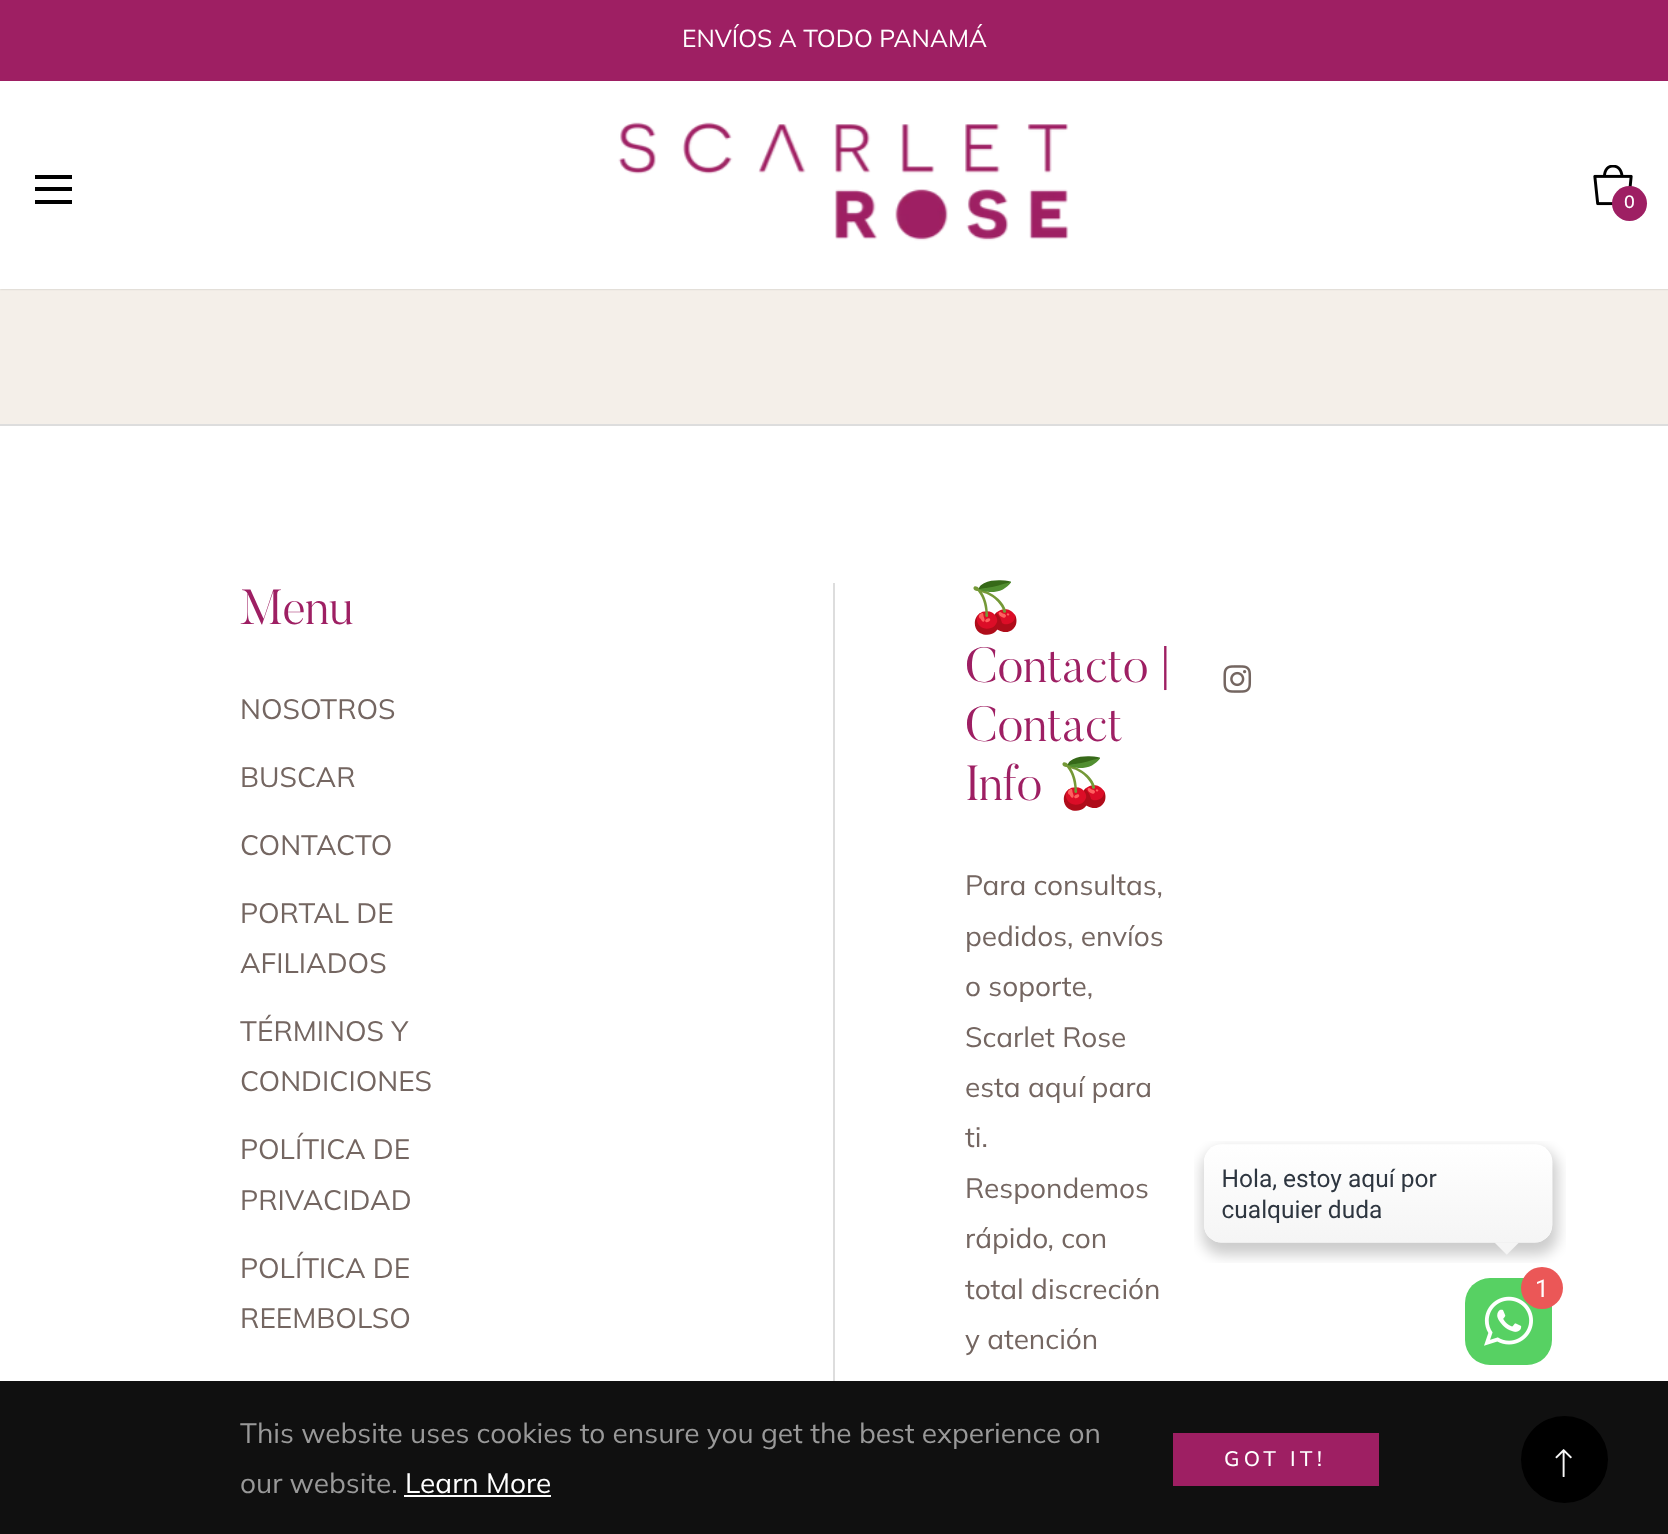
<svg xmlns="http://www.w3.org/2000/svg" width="1668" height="1534">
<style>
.a{font:24.5px Muli;fill:#fff}
.b{font:600 18px Muli;fill:#fff}
.c{font:300 49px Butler;fill:#9e1f63}
.d{font:28px Muli;fill:#746661}
.e{font:49px Noto Color Emoji;fill:#9e1f63}
.f{font:24.5px Roboto;fill:#fff}
.g{font:28px Muli;fill:#999}
.h{font:28px Muli;fill:#fff}
.i{font:500 21px Muli;letter-spacing:4.25px;fill:#fff}
</style>
<rect width="100%" height="100%" fill="#fff"/>
<path fill="#f4efe9" d="M0 289h1668v135H0z"/>
<path fill="#00000033" filter="blur(1px)" d="M0 0h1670v289H0z"/>
<path fill="#fff" d="M0 81h1668v208H0z"/>
<path fill="#9e1f63" d="M0 0h1668v81H0z"/>
<path fill="#000" d="M35 175h37v4H35z"/>
<path fill="#000" d="M35 187h37v4H35z"/>
<path fill="#000" d="M35 200h37v4H35z"/>
<image href="1.png" x="618" y="122" width="451" height="119"/>
<image href="2.png" x="1593" y="165" width="40" height="41"/>
<circle fill="#9e1f63" cx="1629.5" cy="203.5" r="17.5"/>
<path fill="#ddd" d="M0 424h1668v2H0z"/>
<path fill="#ddd" d="M833 583h2v798H833z"/>
<image href="3.png" x="1223" y="665" width="29" height="28"/>
<image href="4.png" x="1194" y="1141" width="372" height="122"/>
<rect fill="#57d163" x="1465" y="1278" width="87" height="87" rx="25"/>
<image href="5.png" x="1484" y="1296" width="49" height="50"/>
<circle fill="#eb5757" cx="1542" cy="1288" r="21"/>
<path fill="#101010" d="M0 1381h1668v153H0z"/>
<path fill="#fff" d="M404 1495h147v2H404z"/>
<path fill="#9e1f63" d="M1173 1433h206v53H1173z"/>
<circle fill="#000" cx="1564.5" cy="1459.5" r="43.5"/>
<image href="6.png" x="1555" y="1449" width="17" height="28"/>
<text class="a" x="682" y="47">ENVÍOS A TODO PANAMÁ</text>
<text class="b" x="1624" y="208">0</text>
<text class="c" x="240" y="624">Menu</text>
<text class="d" x="240" y="719">NOSOTROS</text>
<text class="d" x="240" y="787">BUSCAR</text>
<text class="d" x="240" y="855">CONTACTO</text>
<text class="d" x="240" y="923">PORTAL DE</text>
<text class="d" x="240" y="973">AFILIADOS</text>
<text class="d" x="240" y="1041">TÉRMINOS Y</text>
<text class="d" x="240" y="1091">CONDICIONES</text>
<text class="d" x="240" y="1159">POLÍTICA DE</text>
<text class="d" x="240" y="1210">PRIVACIDAD</text>
<text class="d" x="240" y="1278">POLÍTICA DE</text>
<text class="d" x="240" y="1328">REEMBOLSO</text>
<text class="e" x="965" y="624">🍒</text>
<text class="c" x="965" y="682">Contacto |</text>
<text class="c" x="965" y="741">Contact</text>
<text class="c" x="965" y="800">Info</text>
<text class="e" x="1054" y="800">🍒</text>
<text class="d" x="965" y="895">Para consultas,</text>
<text class="d" x="965" y="946">pedidos, envíos</text>
<text class="d" x="965" y="996">o soporte,</text>
<text class="d" x="965" y="1047">Scarlet Rose</text>
<text class="d" x="965" y="1097">esta aquí para</text>
<text class="d" x="965" y="1147">ti.</text>
<text class="d" x="965" y="1198">Respondemos</text>
<text class="d" x="965" y="1248">rápido, con</text>
<text class="d" x="965" y="1299">total discreción</text>
<text class="d" x="965" y="1349">y atención</text>
<text class="f" x="1535" y="1297">1</text>
<text class="g" x="240" y="1443">This website uses cookies to ensure you get the best experience on</text>
<text class="g" x="240" y="1493">our website.</text>
<text class="h" x="405" y="1493">Learn More</text>
<text class="i" x="1224" y="1466">GOT IT!</text>
</svg>
